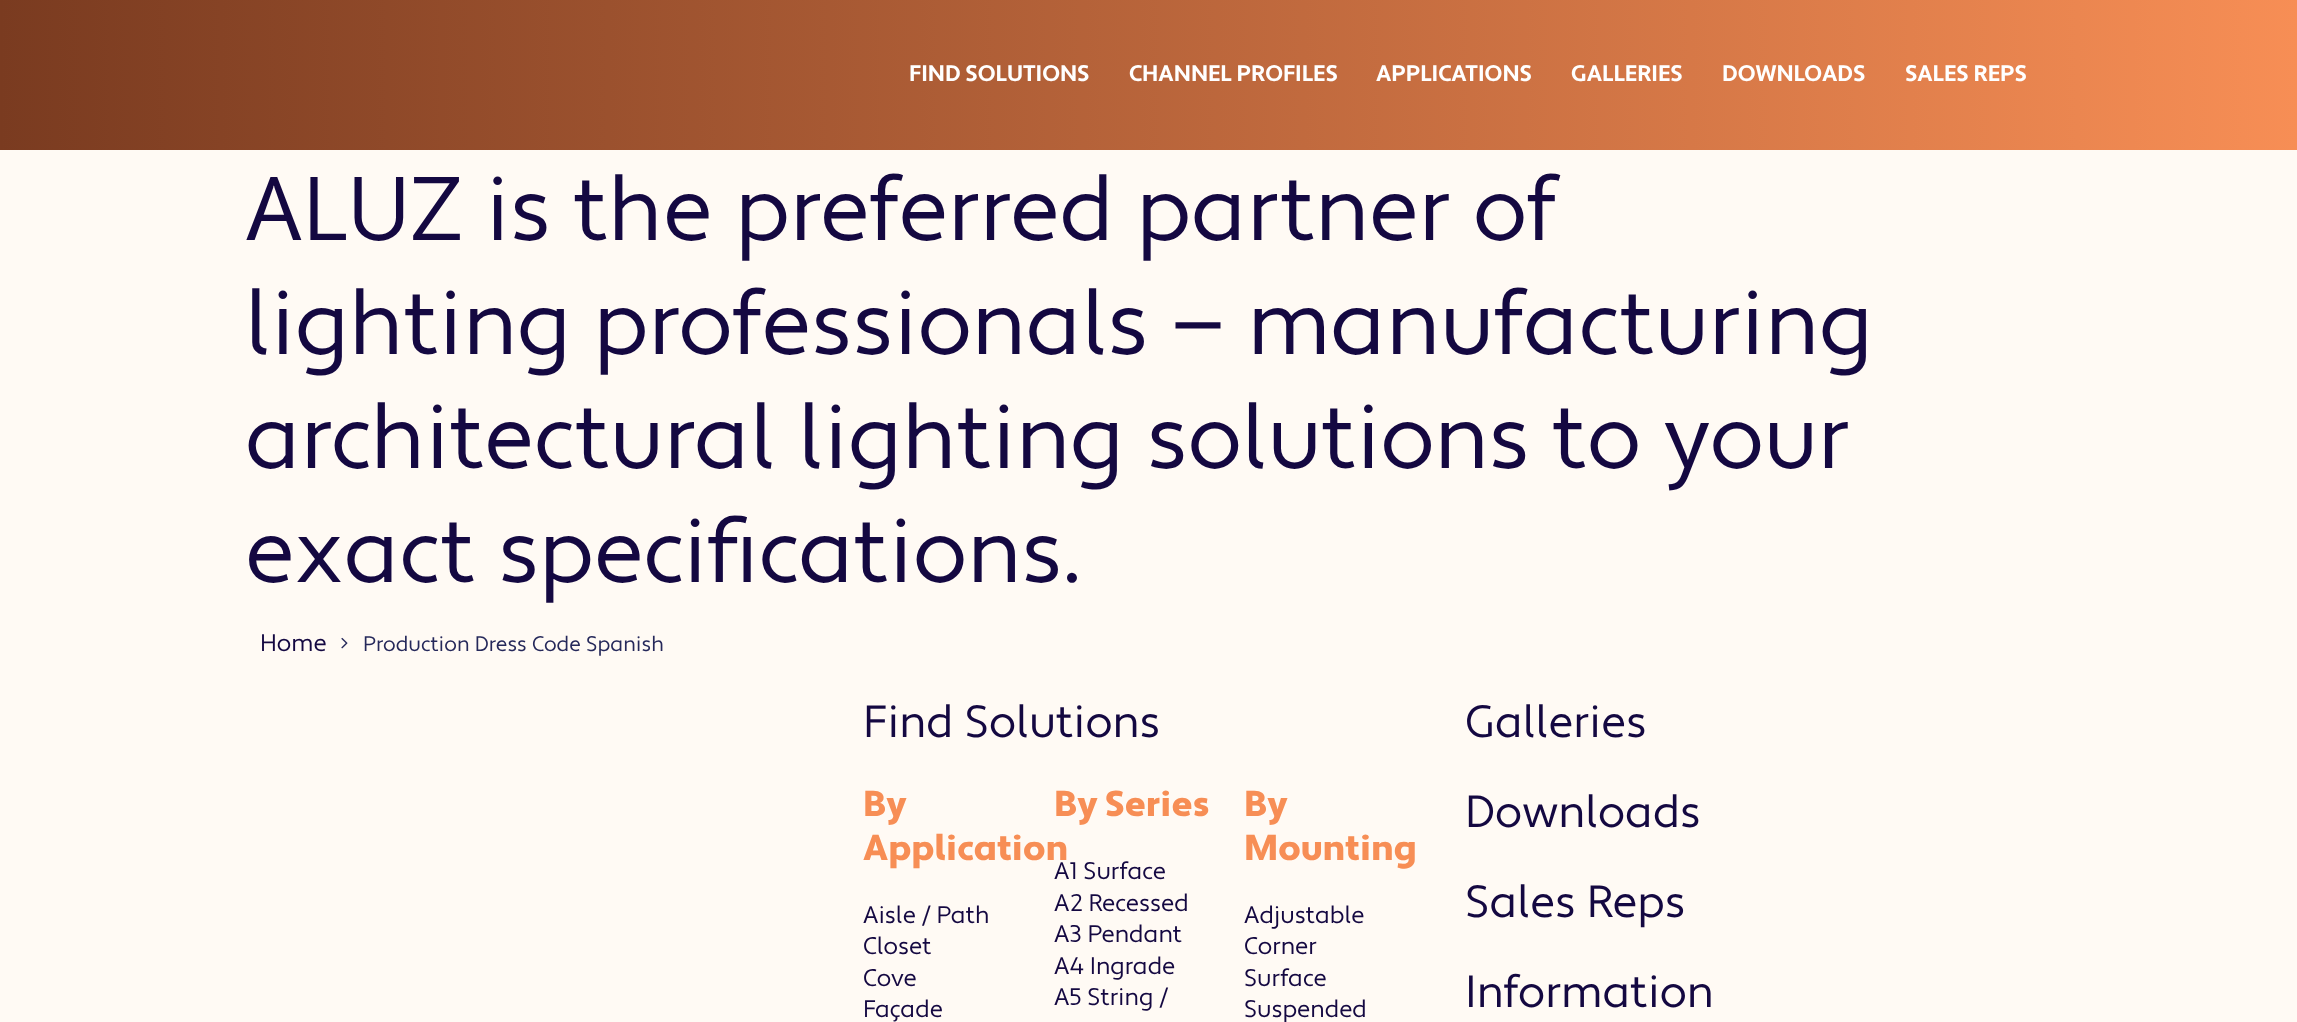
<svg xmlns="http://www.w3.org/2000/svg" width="2297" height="1022">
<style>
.a{font:bold 22.5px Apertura;fill:#fff}
.b{font:90px Apertura;fill:#140841}
.c{font:24px Apertura;fill:#140841}
.d{font:21px Apertura;fill:#25285a}
.e{font:45px Apertura;fill:#140841}
.f{font:900 36px Apertura;fill:#f78e55}
</style>
<defs>
<linearGradient id="g1" gradientUnits="userSpaceOnUse" x1="0" y1="75" x2="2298" y2="75"><stop offset="0" stop-color="#7a3b20"/><stop offset="1" stop-color="#f78e55"/></linearGradient>
</defs>
<rect width="100%" height="100%" fill="#fffaf4"/>
<path fill="url(#g1)" d="M0 0h2297v150H0z"/>
<image href="1.png" x="341" y="637" width="7" height="12"/>
<text class="a" x="909" y="81">FIND SOLUTIONS</text>
<text class="a" x="1129" y="81">CHANNEL PROFILES</text>
<text class="a" x="1376" y="81">APPLICATIONS</text>
<text class="a" x="1571" y="81">GALLERIES</text>
<text class="a" x="1722" y="81">DOWNLOADS</text>
<text class="a" x="1905" y="81">SALES REPS</text>
<text class="b" x="245" y="240">ALUZ is the preferred partner of</text>
<text class="b" x="245" y="354">lighting professionals — manufacturing</text>
<text class="b" x="245" y="468">architectural lighting solutions to your</text>
<text class="b" x="245" y="582">exact specifications.</text>
<text class="c" x="260" y="651">Home</text>
<text class="d" x="363" y="651">Production Dress Code Spanish</text>
<text class="e" x="863" y="737">Find Solutions</text>
<text class="f" x="863" y="816">By</text>
<text class="f" x="863" y="860">Application</text>
<text class="c" x="863" y="923">Aisle / Path</text>
<text class="c" x="863" y="954">Closet</text>
<text class="c" x="863" y="986">Cove</text>
<text class="c" x="863" y="1017">Façade</text>
<text class="f" x="1054" y="816">By Series</text>
<text class="c" x="1054" y="879">A1 Surface</text>
<text class="c" x="1054" y="911">A2 Recessed</text>
<text class="c" x="1054" y="942">A3 Pendant</text>
<text class="c" x="1054" y="974">A4 Ingrade</text>
<text class="c" x="1054" y="1005">A5 String /</text>
<text class="f" x="1244" y="816">By</text>
<text class="f" x="1244" y="860">Mounting</text>
<text class="c" x="1244" y="923">Adjustable</text>
<text class="c" x="1244" y="954">Corner</text>
<text class="c" x="1244" y="986">Surface</text>
<text class="c" x="1244" y="1017">Suspended</text>
<text class="e" x="1465" y="737">Galleries</text>
<text class="e" x="1465" y="827">Downloads</text>
<text class="e" x="1465" y="917">Sales Reps</text>
<text class="e" x="1465" y="1007">Information</text>
</svg>
